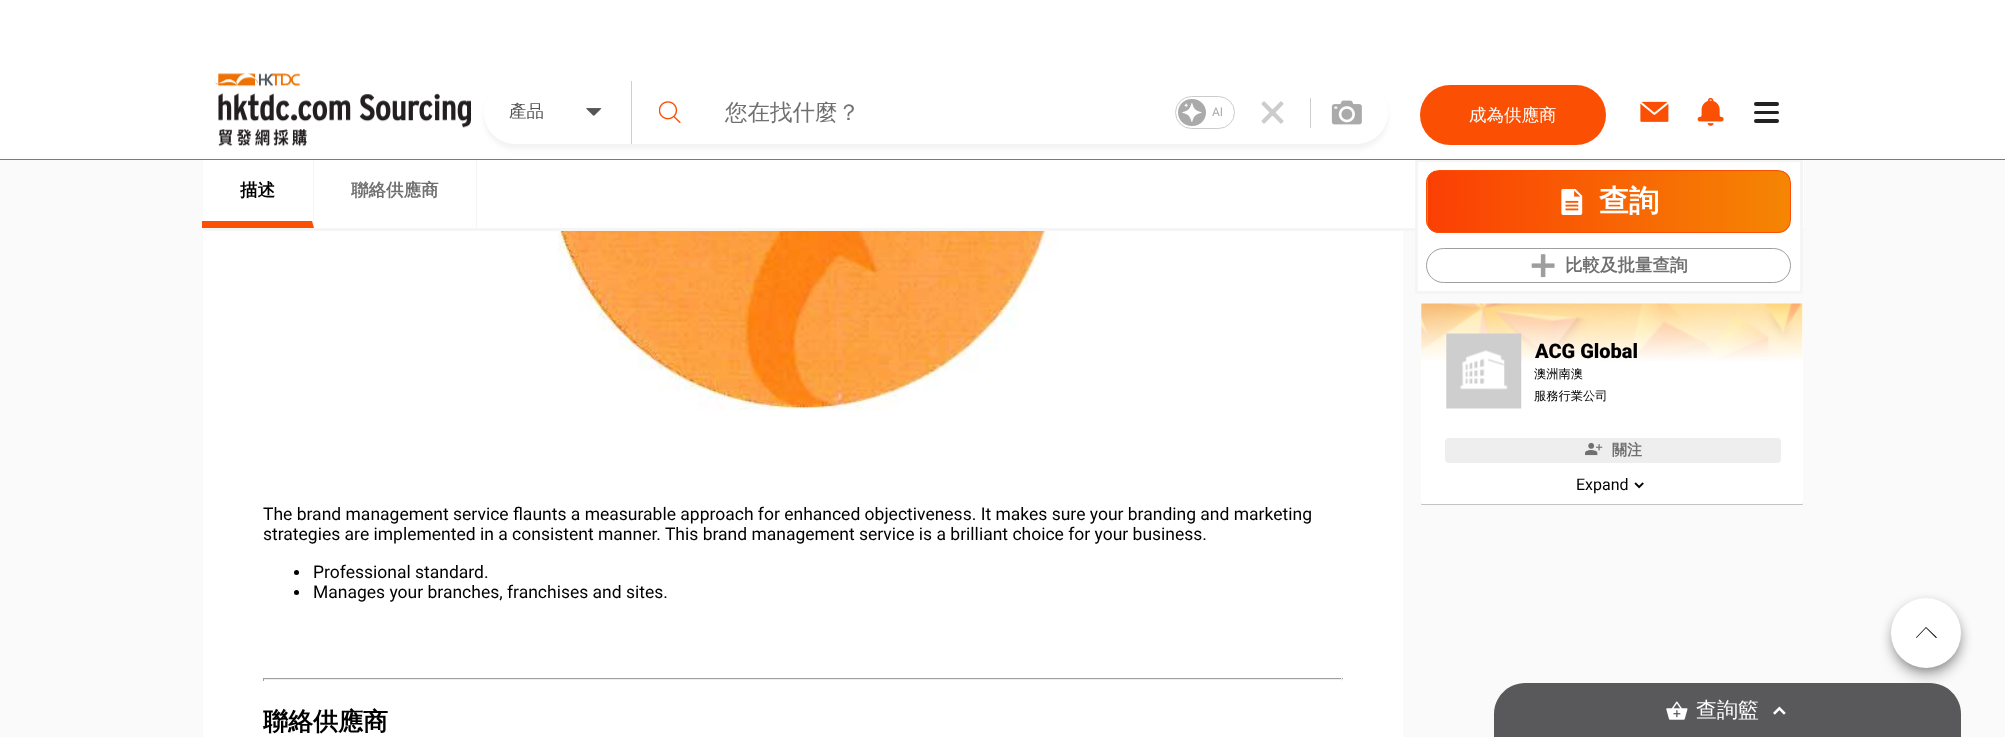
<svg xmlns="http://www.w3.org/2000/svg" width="2005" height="737">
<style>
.a{font:500 17.5px WenQuanYi Zen Hei;fill:#555}
.b{font:500 22.5px WenQuanYi Zen Hei;fill:#707070}
.c{font:12px Roboto;fill:#aaa}
.d{font:500 17.5px WenQuanYi Zen Hei;fill:#fff}
.e{font:bold 17.5px WenQuanYi Zen Hei;fill:#000}
.f{font:bold 17.5px WenQuanYi Zen Hei;fill:#707070}
.g{font:17.5px Roboto;fill:#000}
.h{font:bold 25px WenQuanYi Zen Hei;fill:#000}
.i{font:900 20px Roboto;fill:#000}
.j{font:500 12.25px WenQuanYi Zen Hei;fill:#000}
.k{font:bold 15px WenQuanYi Zen Hei;fill:#707070}
.l{font:16px Roboto;fill:#000}
.m{font:bold 30px WenQuanYi Zen Hei;fill:#fff}
.n{font:500 21px WenQuanYi Zen Hei;fill:#fff}
</style>
<defs>
<clipPath id="clip1"><path d="M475 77h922v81h-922zm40.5 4h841c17.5 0 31.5 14 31.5 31.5c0 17.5-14 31.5-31.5 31.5h-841c-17.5 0-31.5-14-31.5-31.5c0-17.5 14-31.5 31.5-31.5z" clip-rule="evenodd"/></clipPath>
<clipPath id="clip2"><rect x="1426" y="170" width="365" height="63" rx="13"/></clipPath>
<linearGradient id="g1" gradientUnits="userSpaceOnUse" x1="1428" y1="202" x2="1065" y2="201"><stop offset="0" stop-color="#f58603"/><stop offset="1" stop-color="#fb3f04"/></linearGradient>
<linearGradient id="g2" gradientUnits="userSpaceOnUse" x1="1790" y1="202" x2="1427" y2="201"><stop offset="0" stop-color="#f58603"/><stop offset="1" stop-color="#fb3f04"/></linearGradient>
<linearGradient id="g3" gradientUnits="userSpaceOnUse" x1="1790" y1="262" x2="1427" y2="261"><stop offset="0" stop-color="#f58603"/><stop offset="1" stop-color="#fb3f04"/></linearGradient>
</defs>
<rect width="100%" height="100%" fill="#fafafa"/>
<path fill="#fff" d="M0 0h2005v159H0z"/>
<path fill="#fff" d="M312 160h1492v68H312z"/>
<path fill="#f5f5f5" d="M314 159v69l-2-7v-62z"/>
<path fill="#f5f5f5" d="M476 159h1v69H476z"/>
<path fill="#f5f5f5" d="M203 228h1601v3H203z"/>
<path fill="#fff" d="M1418 228h382v63H1418z"/>
<path fill="none" stroke="#f5f5f5" stroke-width="3" d="M1416.5 160.5h385v132H1416.5z"/>
<path fill="#fb5004" d="M0 159h2005v1H0z"/>
<image href="1.png" x="215" y="73" width="256" height="74"/>
<g clip-path="url(#clip1)">
<rect fill="#7f7f7f1a" filter="blur(2.5px)" x="484" y="86" width="904" height="63" rx="31.5"/>
</g>
<path fill="#cfcfcf" d="M631 81h1v63H631z"/>
<image href="2.png" x="586" y="108" width="16" height="8"/>
<image href="3.png" x="659" y="101" width="22" height="22"/>
<rect fill="none" stroke="#ccc" x="1175.5" y="96.5" width="59" height="32" rx="16"/>
<image href="4.png" x="1178" y="99" width="28" height="27"/>
<image href="5.png" x="1261" y="101" width="23" height="23"/>
<path fill="#ccc" d="M1310 98h1v30H1310z"/>
<image href="6.png" x="1331" y="100" width="31" height="25"/>
<rect fill="#fb5004" x="1420" y="85" width="186" height="60" rx="30"/>
<image href="7.png" x="1640" y="101" width="29" height="21"/>
<image href="8.png" x="1697" y="98" width="27" height="28"/>
<rect fill="#222" x="1754" y="102" width="25" height="4" rx="2"/>
<rect fill="#222" x="1754" y="111" width="25" height="3" rx="1.5"/>
<rect fill="#222" x="1754" y="119" width="25" height="4" rx="2"/>
<path fill="#fff" d="M203 231h1200v506H203z"/>
<path fill="#fb5004" d="M314 228h-112v-7h110z"/>
<path fill="#fff" d="M203 160h110v61H203z"/>
<image href="9.png" x="538" y="231" width="521" height="180"/>
<circle fill="#000" cx="296.5" cy="572.5" r="2.5"/>
<circle fill="#000" cx="296.5" cy="592.5" r="2.5"/>
<path fill="#9f9f9f" d="M263 678h1080v1H263z"/>
<path fill="#eee" d="M1341 678h1v3H1341z"/>
<path fill="#eee" d="M263 679h1080v1H263z"/>
<path fill="#9f9f9f" d="M263 678h1v3H263z"/>
<rect fill="#07000138" filter="blur(0.5px)" x="1421" y="305" width="382" height="200" rx="1"/>
<rect fill="#fff" x="1421" y="304" width="382" height="200" rx="1"/>
<image href="10.png" x="1421" y="303" width="382" height="58"/>
<path fill="#fff" d="M1446 334h75v27H1446z"/>
<image href="11.png" x="1446" y="333" width="76" height="76"/>
<rect fill="#eee" x="1445" y="438" width="336" height="25" rx="4"/>
<image href="12.png" x="1585" y="442" width="18" height="14"/>
<image href="13.png" x="1634" y="482" width="10" height="7"/>
<g clip-path="url(#clip2)">
<path fill="url(#g1)" d="M1426 171h2v60H1426z"/>
<path fill="url(#g2)" d="M1428 171h362v60H1428z"/>
<path fill="url(#g3)" d="M1428 231h362v2H1428z"/>
</g>
<rect fill="none" stroke="#fb5004" x="1426.5" y="170.5" width="364" height="62" rx="12.5"/>
<image href="14.png" x="1561" y="189" width="22" height="26"/>
<rect fill="none" stroke="#9e9e9e" x="1426.5" y="248.5" width="364" height="34" rx="17"/>
<image href="15.png" x="1531" y="254" width="24" height="24"/>
<rect fill="#0000001f" filter="blur(4.5px)" x="1889" y="599" width="75" height="75" rx="37.5"/>
<rect fill="#00000024" filter="blur(6px)" x="1890" y="606" width="73" height="73" rx="36.5"/>
<rect fill="#00000033" filter="blur(3px)" x="1895" y="608" width="63" height="62" rx="31"/>
<circle fill="#fff" cx="1926" cy="633" r="35"/>
<path fill="#000" d="M1916 637.5l10-10.5l11 10.5l-1 .5l-10-10l-9.5 10z"/>
<path fill="#59595b" d="M1525 683h405c17 0 31 14 31 31v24h-467v-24c0-17 14-31 31-31z"/>
<image href="16.png" x="1666" y="701" width="22" height="19"/>
<image href="17.png" x="1773" y="706" width="13" height="9"/>
<text class="a" x="509" y="117">產品</text>
<text class="b" x="725" y="120">您在找什麼？</text>
<text class="c" x="1212" y="116">AI</text>
<text class="d" x="1469" y="121">成為供應商</text>
<text class="e" x="240" y="196">描述</text>
<text class="f" x="351" y="196">聯絡供應商</text>
<text class="g" x="263" y="520">The brand management service flaunts a measurable approach for enhanced objectiveness. It makes sure your branding and marketing</text>
<text class="g" x="263" y="540">strategies are implemented in a consistent manner. This brand management service is a brilliant choice for your business.</text>
<text class="g" x="313" y="578">Professional standard.</text>
<text class="g" x="313" y="598">Manages your branches, franchises and sites.</text>
<text class="h" x="263" y="730">聯絡供應商</text>
<text class="i" x="1535" y="358">ACG Global</text>
<text class="j" x="1534" y="378">澳洲南澳</text>
<text class="j" x="1534" y="400">服務行業公司</text>
<text class="k" x="1612" y="455">關注</text>
<text class="l" x="1576" y="490">Expand</text>
<text class="m" x="1599" y="211">查詢</text>
<text class="f" x="1565" y="271">比較及批量查詢</text>
<text class="n" x="1696" y="717">查詢籃</text>
</svg>
